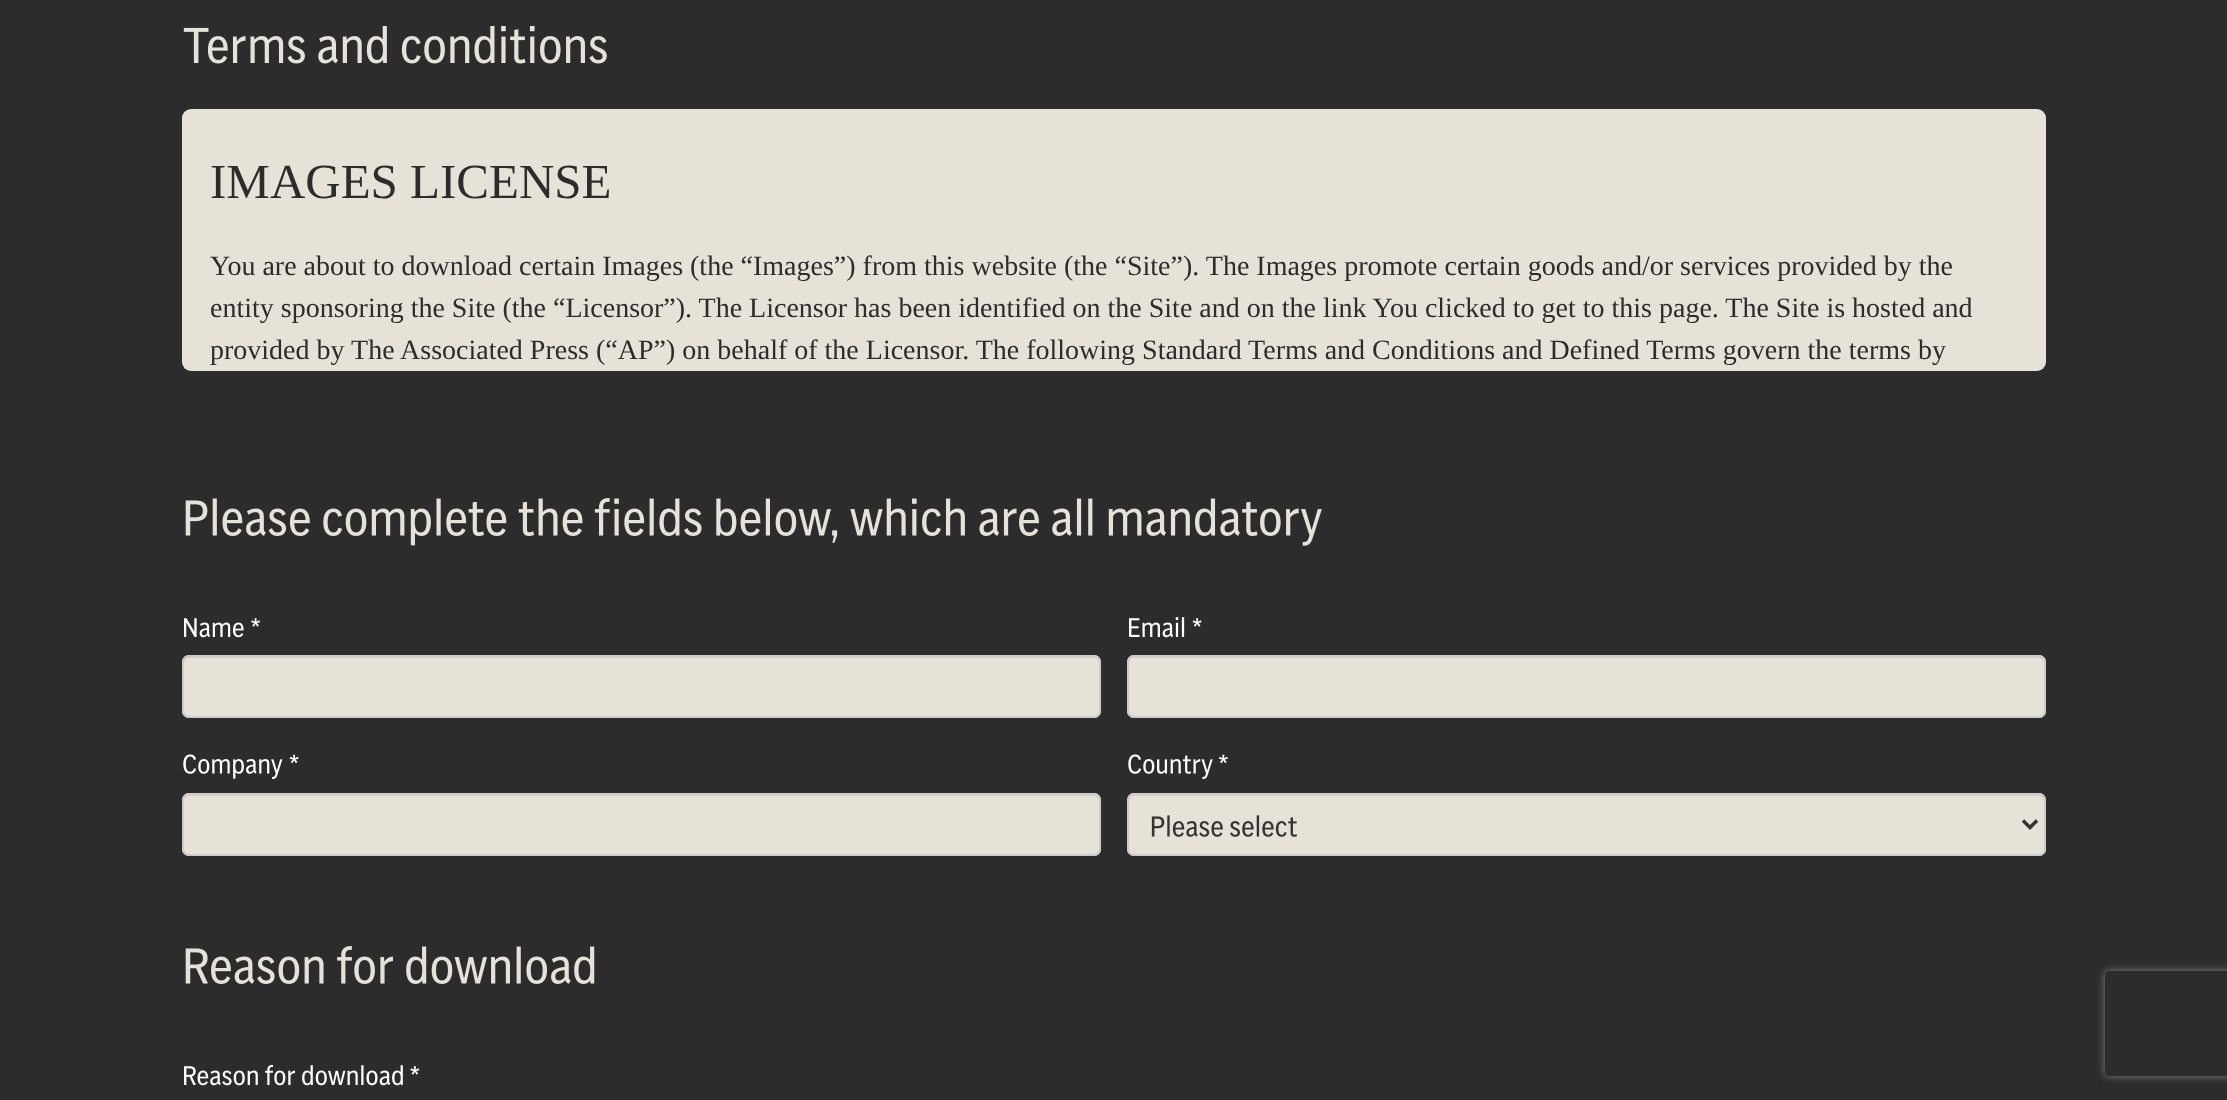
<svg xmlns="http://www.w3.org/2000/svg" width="2227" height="1100">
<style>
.a{font:49px Liberation Serif;fill:#2c2c2c}
.b{font:28px Liberation Serif;fill:#2c2c2c}
</style>
<defs>
<clipPath id="clip1"><path d="M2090 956h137v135h-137zm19 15h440c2 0 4 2 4 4v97c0 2-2 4-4 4h-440c-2 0-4-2-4-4v-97c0-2 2-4 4-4z" clip-rule="evenodd"/></clipPath>
</defs>
<rect width="100%" height="100%" fill="#2c2c2c"/>
<image href="1.png" x="183" y="26" width="424" height="38"/>
<rect fill="#e7e2d8" x="182" y="109" width="1864" height="262" rx="9"/>
<image href="2.png" x="185" y="498" width="1137" height="48"/>
<image href="3.png" x="184" y="618" width="60" height="20"/>
<image href="4.png" x="251" y="618" width="9" height="9"/>
<rect fill="#e7e2d8" x="182" y="655" width="919" height="63" rx="7"/>
<path fill="#d6d1c8" d="M189 658h905c3 0 5 2 5 5v-2c0-3-2-5-5-5h-905c-3 0-5 2-5 5v2c0-3 2-5 5-5z"/>
<rect fill="none" stroke="#ccc" stroke-width="2" x="183" y="656" width="917" height="61" rx="6"/>
<image href="5.png" x="1129" y="617" width="56" height="21"/>
<image href="6.png" x="1192" y="618" width="10" height="9"/>
<rect fill="#e7e2d8" x="1127" y="655" width="919" height="63" rx="7"/>
<path fill="#d6d1c8" d="M1134 658h905c3 0 5 2 5 5v-2c0-3-2-5-5-5h-905c-3 0-5 2-5 5v2c0-3 2-5 5-5z"/>
<rect fill="none" stroke="#ccc" stroke-width="2" x="1128" y="656" width="917" height="61" rx="6"/>
<image href="7.png" x="183" y="754" width="100" height="25"/>
<image href="8.png" x="289" y="754" width="10" height="10"/>
<rect fill="#e7e2d8" x="182" y="793" width="919" height="63" rx="7"/>
<path fill="#d6d1c8" d="M189 796h905c3 0 5 3 5 6v-2c0-3-2-5-5-5h-905c-3 0-5 2-5 5v2c0-3 2-6 5-6z"/>
<rect fill="none" stroke="#ccc" stroke-width="2" x="183" y="794" width="917" height="61" rx="6"/>
<image href="9.png" x="1128" y="754" width="85" height="25"/>
<image href="10.png" x="1219" y="754" width="9" height="10"/>
<rect fill="#e7e2d8" x="1127" y="793" width="919" height="63" rx="7"/>
<path fill="#d6d1c8" d="M1134 796h905c3 0 5 3 5 6v-2c0-3-2-5-5-5h-905c-3 0-5 2-5 5v2c0-3 2-6 5-6z"/>
<rect fill="none" stroke="#ccc" stroke-width="2" x="1128" y="794" width="917" height="61" rx="6"/>
<path fill="none" stroke="#333" stroke-width="3.5" d="M2023 820.5l7 7l7-7"/>
<image href="11.png" x="1151" y="815" width="146" height="22"/>
<image href="12.png" x="185" y="946" width="410" height="38"/>
<image href="13.png" x="184" y="1064" width="219" height="22"/>
<image href="14.png" x="410" y="1066" width="10" height="9"/>
<g clip-path="url(#clip1)">
<rect fill="#808080" filter="blur(4.5px)" x="2105" y="971" width="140" height="105" rx="4"/>
</g>
<text class="a" x="210" y="198">IMAGES LICENSE</text>
<text class="b" x="210" y="275">You are about to download certain Images (the “Images”) from this website (the “Site”). The Images promote certain goods and/or services provided by the</text>
<text class="b" x="210" y="317">entity sponsoring the Site (the “Licensor”). The Licensor has been identified on the Site and on the link You clicked to get to this page. The Site is hosted and</text>
<text class="b" x="210" y="359">provided by The Associated Press (“AP”) on behalf of the Licensor. The following Standard Terms and Conditions and Defined Terms govern the terms by</text>
</svg>
